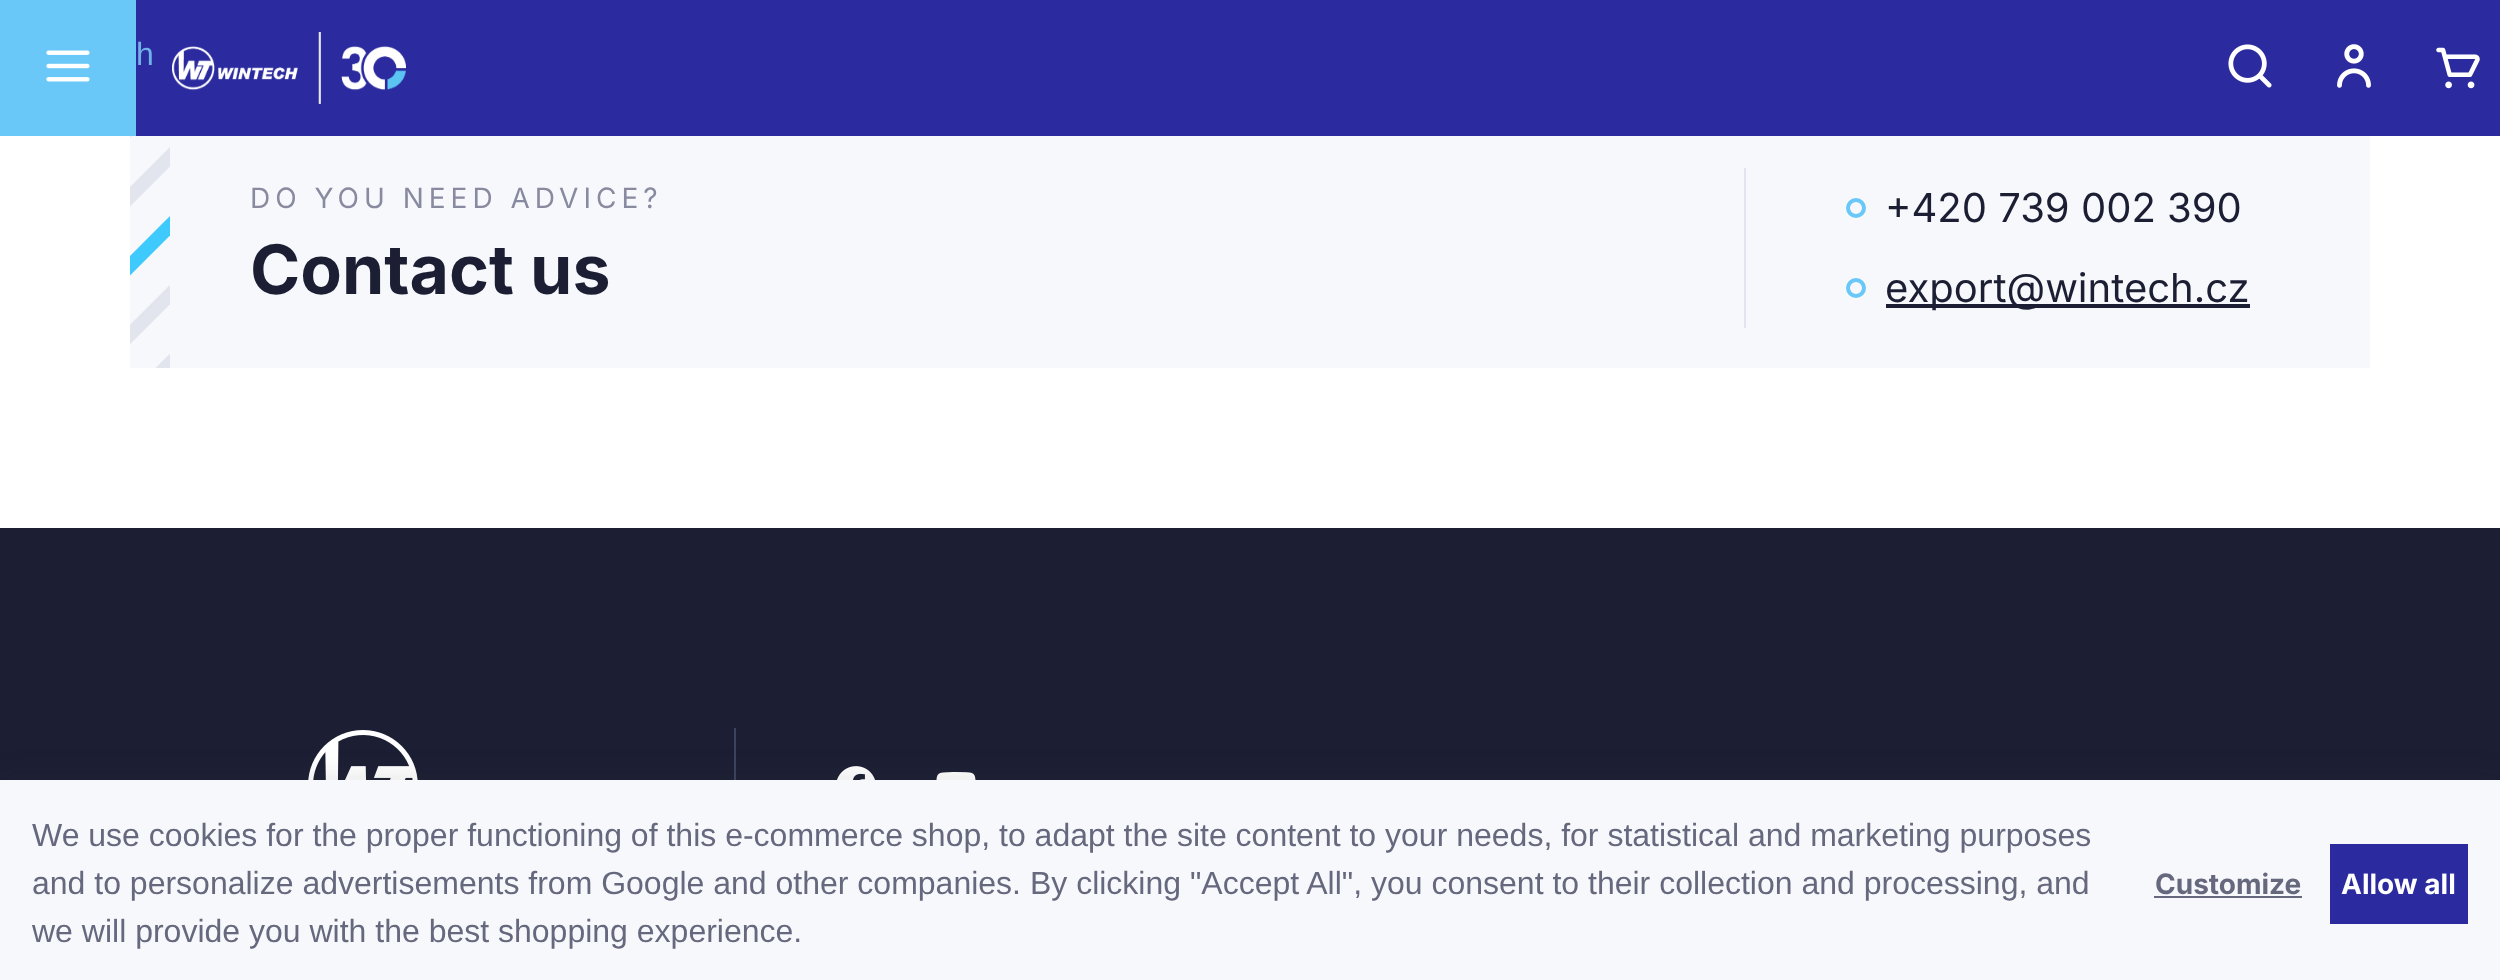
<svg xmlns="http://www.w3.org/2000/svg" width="2500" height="980">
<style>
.a{font:32px Liberation Sans;fill:#6fb1e8}
.b{font:28px Inter;letter-spacing:5px;fill:#888a9f}
.c{font:bold 68px Inter;fill:#1c1f34}
.d{font:40px Inter;fill:#1c1f34}
.e{font:32px Liberation Sans;fill:#66697e}
.f{font:bold 28px Inter;fill:#66697e}
.g{font:bold 28px Inter;fill:#fff}
</style>
<rect width="100%" height="100%" fill="#fff"/>
<path fill="#2b2b9f" d="M136 0h2364v136H136z"/>
<path fill="#69c8f8" d="M0 0h136v136H0z"/>
<image href="1.png" x="46" y="50" width="44" height="32"/>
<image href="2.png" x="172" y="32" width="234" height="72"/>
<image href="3.png" x="2228" y="44" width="44" height="44"/>
<image href="4.png" x="2337" y="44" width="34" height="44"/>
<image href="5.png" x="2436" y="47" width="44" height="42"/>
<path fill="#f7f8fc" d="M130 136h2240v232H130z"/>
<image href="6.png" x="130" y="136" width="40" height="232"/>
<path fill="#e2e4ef" d="M1744 168h2v160H1744z"/>
<circle fill="none" stroke="#69c8f8" stroke-width="4" cx="1856" cy="208" r="8"/>
<circle fill="none" stroke="#69c8f8" stroke-width="4" cx="1856" cy="288" r="8"/>
<path fill="#1c1f34" d="M1886 304h364v4H1886z"/>
<path fill="#1c1f34" d="M0 528h2500v252H0z"/>
<image href="7.png" x="308" y="730" width="110" height="50"/>
<path fill="#3b4360" d="M734 728h2v52H734z"/>
<image href="8.png" x="837" y="766" width="38" height="14"/>
<image href="9.png" x="936" y="772" width="40" height="8"/>
<path fill="#37373726" filter="blur(15px)" d="M0 780h2500v200H0z"/>
<path fill="#f7f8fc" d="M0 780h2500v200H0z"/>
<path fill="#66697e" d="M2154 896h148v2H2154z"/>
<path fill="#2b2b9f" d="M2330 844h138v80H2330z"/>
<text class="a" x="136" y="65">h</text>
<text class="b" x="250" y="208">DO YOU NEED ADVICE?</text>
<text class="c" x="250" y="294">Contact us</text>
<text class="d" x="1885" y="222">+420 739 002 390</text>
<text class="d" x="1885" y="302">export@wintech.cz</text>
<text class="e" x="32" y="846">We use cookies for the proper functioning of this e-commerce shop, to adapt the site content to your needs, for statistical and marketing purposes</text>
<text class="e" x="32" y="894">and to personalize advertisements from Google and other companies. By clicking "Accept All", you consent to their collection and processing, and</text>
<text class="e" x="32" y="942">we will provide you with the best shopping experience.</text>
<text class="f" x="2155" y="894">Customize</text>
<text class="g" x="2341" y="894">Allow all</text>
</svg>
